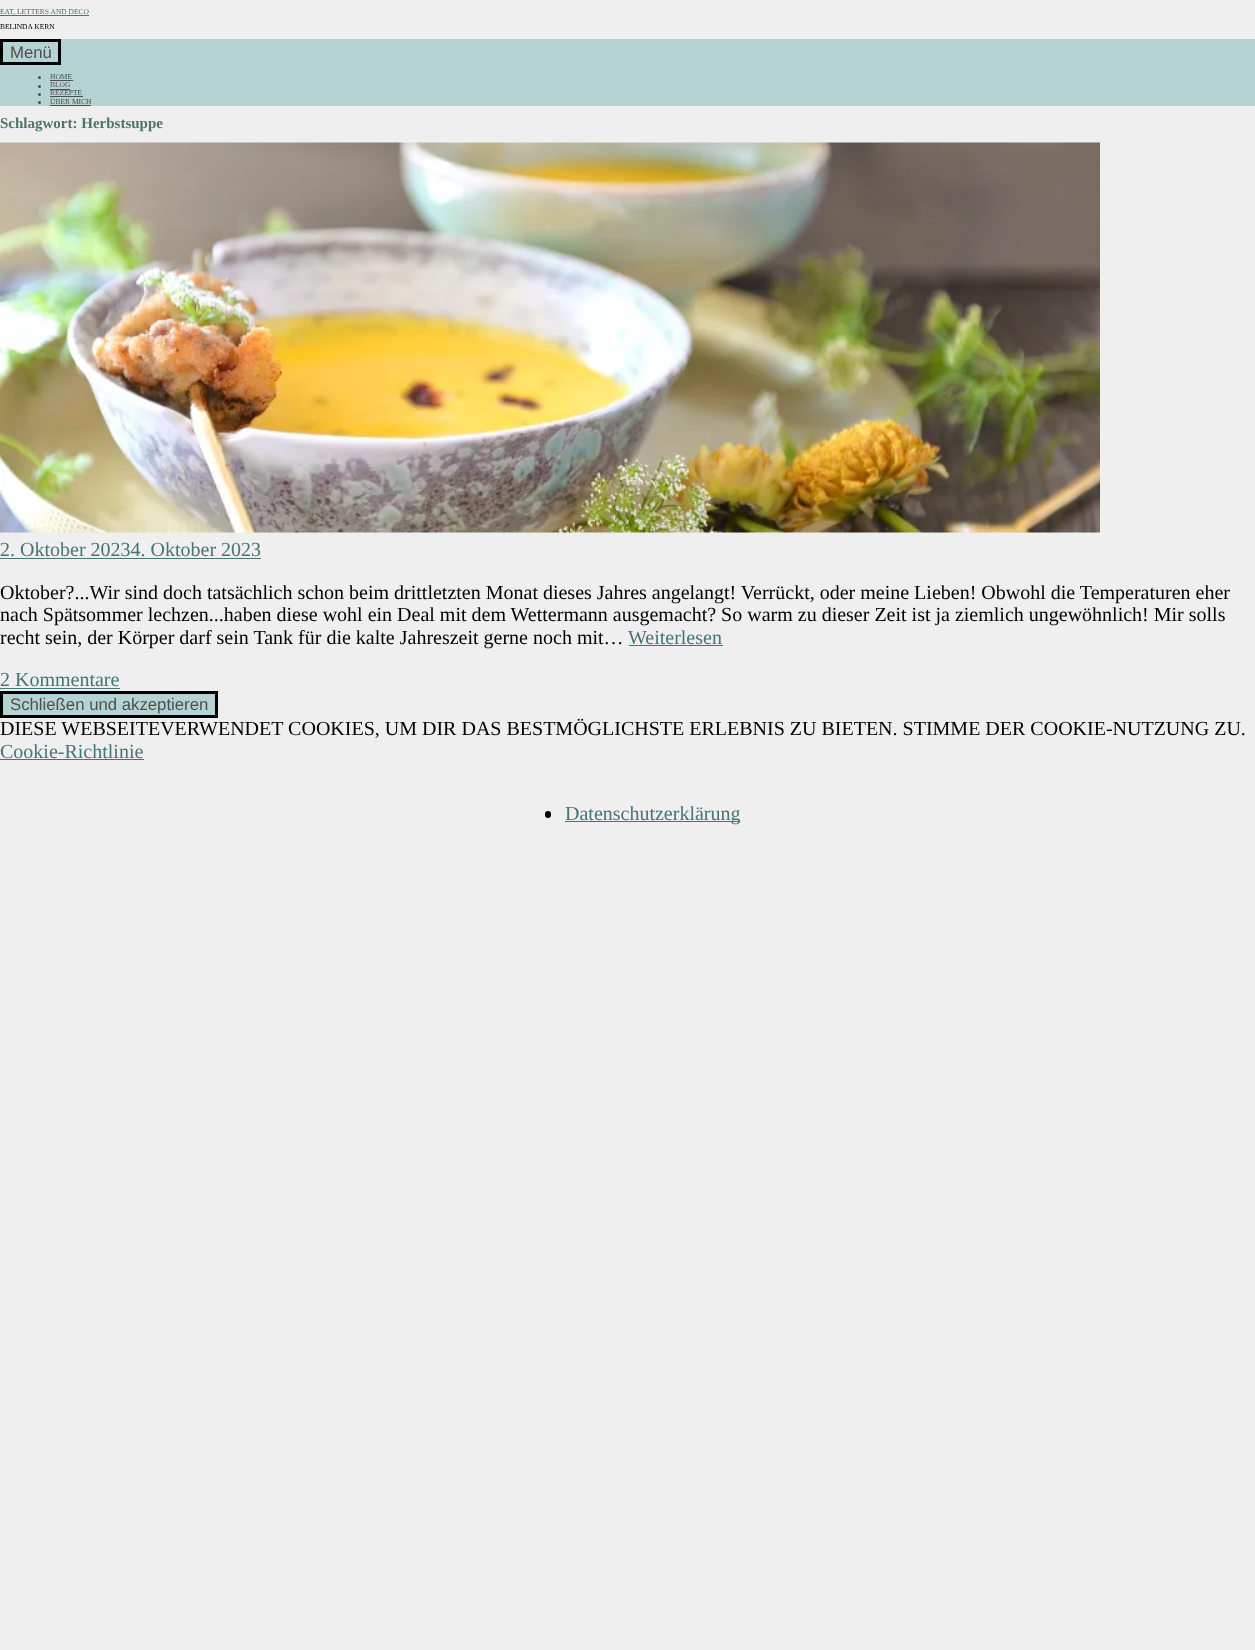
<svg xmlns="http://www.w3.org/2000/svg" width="1255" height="1650">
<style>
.a{font:7.5px Liberation Serif;fill:#4b766b}
.b{font:7.5px Liberation Serif;fill:#000}
.c{font:16.75px Liberation Sans;fill:#4f4f4f}
.d{font:7.5px Liberation Serif;fill:#4f4f4f}
.e{font:bold 15px Liberation Serif;fill:#4b766b}
.f{font:20px Liberation Serif;fill:#477474}
.g{font:20px Liberation Serif;fill:#000}
</style>
<rect width="100%" height="100%" fill="#efefef"/>
<path fill="#4b766b" d="M0 15h89v1H0z"/>
<path fill="#b5d3d2" d="M0 39h1255v67H0z"/>
<path fill="none" stroke="#000" stroke-width="3" d="M1.5 40.5h58v23H1.5z"/>
<circle fill="#4f4f4f" cx="39.5" cy="77.5" r="1.5"/>
<path fill="#4f4f4f" d="M50 80h23v1H50z"/>
<circle fill="#4f4f4f" cx="39.5" cy="86.5" r="1.5"/>
<path fill="#4f4f4f" d="M50 89h20v1H50z"/>
<circle fill="#4f4f4f" cx="39.5" cy="94.5" r="1.5"/>
<path fill="#4f4f4f" d="M50 96h33v1H50z"/>
<circle fill="#4f4f4f" cx="39.5" cy="102.5" r="1.5"/>
<path fill="#4f4f4f" d="M50 105h41v1H50z"/>
<image href="1.png" x="0" y="142" width="1100" height="391"/>
<path fill="#477474" d="M0 558h261v1H0z"/>
<path fill="#477474" d="M629 645h94v1H629z"/>
<path fill="#477474" d="M0 688h120v1H0z"/>
<path fill="#b5d3d2" stroke="#000" stroke-width="3" d="M1.5 692.5h215v24H1.5z"/>
<path fill="#477474" d="M0 759h144v1H0z"/>
<rect fill="#000" x="545" y="811" width="6" height="7" rx="3"/>
<path fill="#477474" d="M565 821h175v1H565z"/>
<text class="a" x="0" y="14">EAT, LETTERS AND DECO</text>
<text class="b" x="0" y="29">BELINDA KERN</text>
<text class="c" x="10" y="58">Menü</text>
<text class="d" x="50" y="79">HOME</text>
<text class="d" x="50" y="87">BLOG</text>
<text class="d" x="50" y="95">REZEPTE</text>
<text class="d" x="50" y="104">ÜBER MICH</text>
<text class="e" x="0" y="128">Schlagwort: Herbstsuppe</text>
<text class="f" x="0" y="556">2. Oktober 20234. Oktober 2023</text>
<text class="g" x="0" y="599">Oktober?...Wir sind doch tatsächlich schon beim drittletzten Monat dieses Jahres angelangt! Verrückt, oder meine Lieben! Obwohl die Temperaturen eher</text>
<text class="g" x="0" y="621">nach Spätsommer lechzen...haben diese wohl ein Deal mit dem Wettermann ausgemacht? So warm zu dieser Zeit ist ja ziemlich ungewöhnlich! Mir solls</text>
<text class="g" x="0" y="644">recht sein, der Körper darf sein Tank für die kalte Jahreszeit gerne noch mit…</text>
<text class="f" x="628" y="644">Weiterlesen</text>
<text class="f" x="0" y="686">2 Kommentare</text>
<text class="c" x="10" y="710">Schließen und akzeptieren</text>
<text class="g" x="0" y="735">DIESE WEBSEITEVERWENDET COOKIES, UM DIR DAS BESTMÖGLICHSTE ERLEBNIS ZU BIETEN. STIMME DER COOKIE-NUTZUNG ZU.</text>
<text class="f" x="0" y="758">Cookie-Richtlinie</text>
<text class="f" x="565" y="820">Datenschutzerklärung</text>
</svg>
